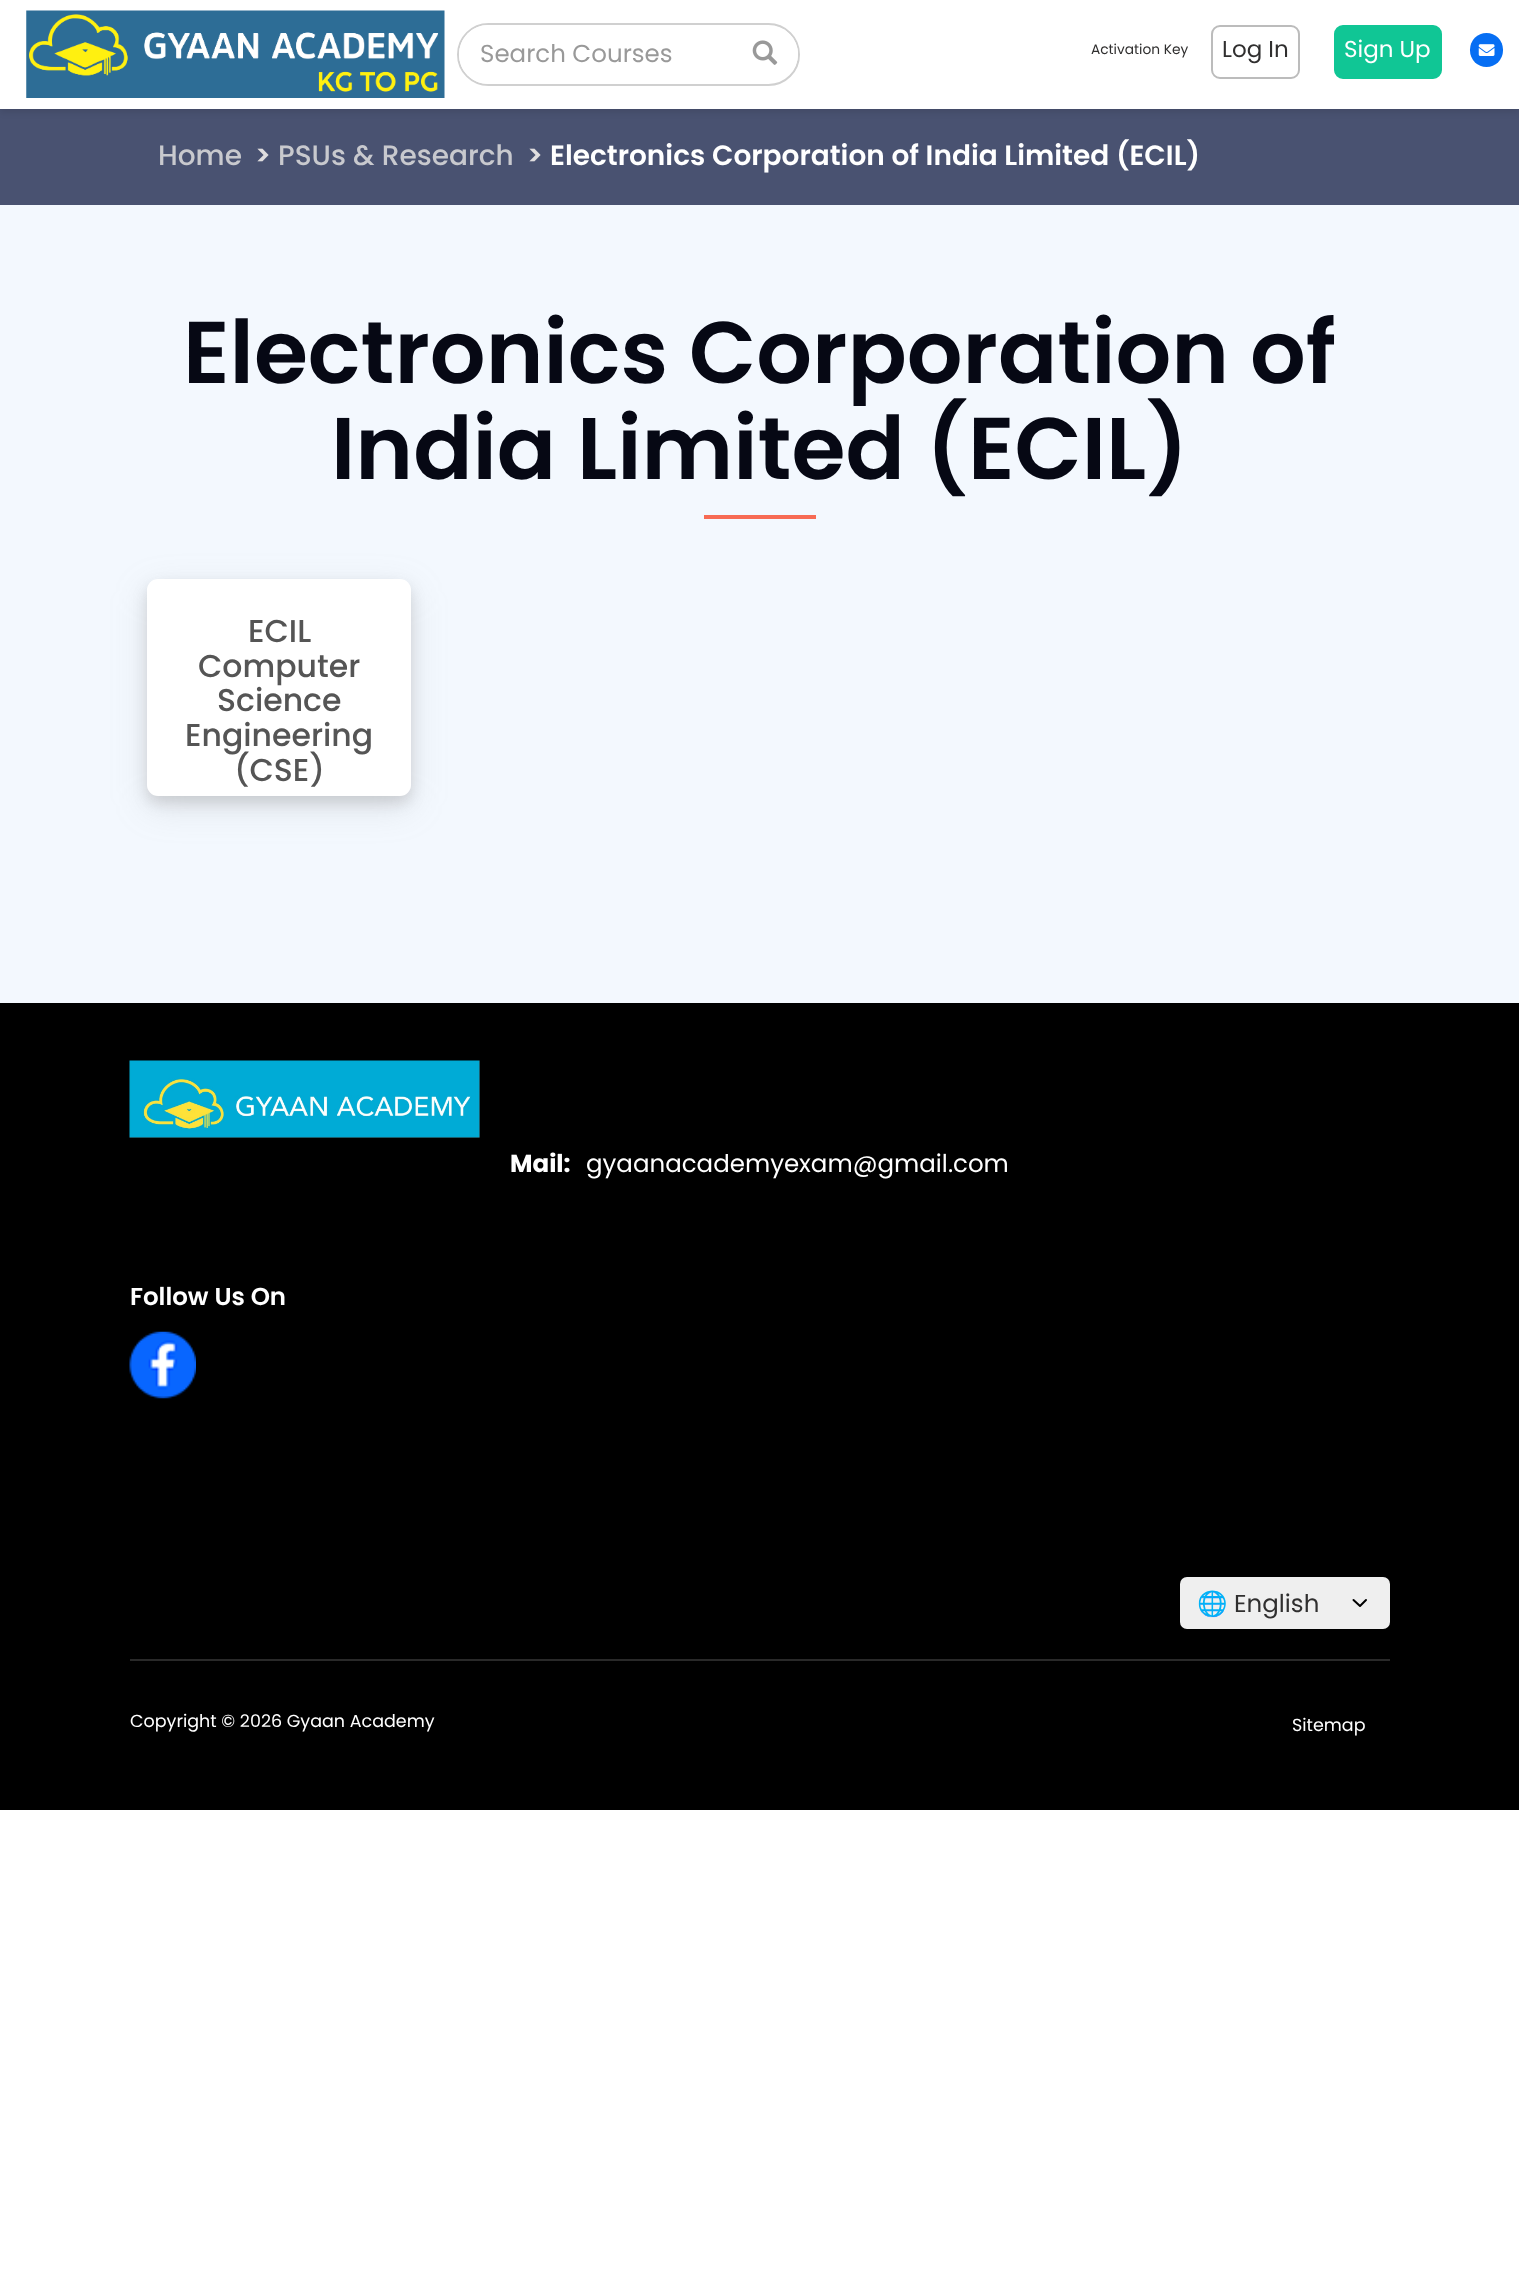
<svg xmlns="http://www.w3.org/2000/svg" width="1519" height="2295">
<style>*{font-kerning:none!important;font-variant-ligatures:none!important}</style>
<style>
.a{font:24.5px Poppins;fill:#999}
.b{font:13.75px Poppins;fill:#302f2f}
.c{font:23px Poppins;fill:#302f2f}
.d{font:23px Poppins;fill:#fff}
.e{font:500 28px Poppins;fill:#c8c9ce}
.f{font:600 28px Poppins;fill:#e0dedf}
.g{font:600 28px Poppins;fill:#fff}
.h{font:600 87.5px Poppins;fill:#060814}
.i{font:500 31.5px 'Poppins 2';fill:#555}
.j{font:bold 24.5px Poppins;fill:#fff}
.k{font:24.5px Poppins;fill:#fff}
.l{font:600 24.5px 'Poppins 2';fill:#fff}
.m{font:24.5px Noto Color Emoji;fill:#302f2f}
.n{font:24.5px Poppins;fill:#302f2f}
.o{font:17.5px Poppins;fill:#fff}
</style>
<rect width="100%" height="100%" fill="#fff"/>
<path fill="#495271" d="M0 109h1519v96H0z"/>
<path fill="#0000001a" filter="blur(3.5px)" d="M0 4h1519v108H0z"/>
<path fill="#fff" d="M0 0h1519v109H0z"/>
<image href="1.png" x="26" y="10" width="419" height="88"/>
<rect fill="none" stroke="#d0d0d0" stroke-width="2" x="458" y="24" width="341" height="61" rx="30.5"/>
<path fill="#fff" d="M488.5 25h244.5v59h-244.5c-16.5 0-29.5-13-29.5-29.5c0-16.5 13-29.5 29.5-29.5z"/>
<path fill="#fff" d="M732 26h38c15.5 0 28 12.5 28 28c0 15.5-12.5 28-28 28h-38z"/>
<image href="2.png" x="752" y="40" width="26" height="25"/>
<rect fill="none" stroke="#bcbcbc" stroke-width="2" x="1212" y="26" width="87" height="52" rx="8"/>
<rect fill="#10c695" stroke="#10c695" stroke-width="2" x="1335" y="26" width="106" height="52" rx="8"/>
<rect fill="#066ef3" x="1470" y="33" width="33" height="34" rx="16.5"/>
<image href="3.png" x="1478" y="44" width="17" height="12"/>
<path fill="#f3f8fe" d="M0 205h1519v798H0z"/>
<path fill="#f76b54" d="M704 515h112v4H704z"/>
<rect fill="#92929233" filter="blur(17.5px)" x="147" y="590" width="264" height="217" rx="11"/>
<rect fill="#5f5f5f33" filter="blur(7px)" x="147" y="586" width="264" height="217" rx="11"/>
<rect fill="#fff" x="147" y="579" width="264" height="217" rx="11"/>
<path fill="#000" d="M0 1003h1519v807H0z"/>
<image href="4.png" x="129" y="1060" width="351" height="78"/>
<image href="5.png" x="129" y="1331" width="67" height="68"/>
<rect fill="#efefef" x="1180" y="1577" width="210" height="52" rx="7"/>
<path fill="none" stroke="#000" stroke-width="2" stroke-linecap="round" stroke-linejoin="round" d="M1353.5 1600l6.5 6l6-6"/>
<path fill="#292929" d="M130 1659h1260v2H130z"/>
<text class="a" x="480" y="62">Search Courses</text>
<text class="b" x="1091" y="54">Activation Key</text>
<text class="c" x="1222" y="57">Log In</text>
<text class="d" x="1344" y="57">Sign Up</text>
<text class="e" x="158" y="165">Home</text>
<text class="f" x="255" y="165">&gt;</text>
<text class="e" x="278" y="165">PSUs &amp; Research</text>
<text class="f" x="527" y="165">&gt;</text>
<text class="g" x="550" y="165">Electronics Corporation of India Limited (ECIL)</text>
<text class="h" x="183" y="383">Electronics Corporation of</text>
<text class="h" x="331" y="479">India Limited (ECIL)</text>
<text class="i" x="248" y="642">ECIL</text>
<text class="i" x="198" y="677">Computer</text>
<text class="i" x="217" y="711">Science</text>
<text class="i" x="185" y="746">Engineering</text>
<text class="i" x="234" y="781">(CSE)</text>
<text class="j" x="510" y="1172">Mail:</text>
<text class="k" x="586" y="1172">gyaanacademyexam@gmail.com</text>
<text class="l" x="130" y="1305">Follow Us On</text>
<text class="m" x="1197" y="1612">🌐</text>
<text class="n" x="1234" y="1612">English</text>
<text class="o" x="130" y="1727">Copyright © 2026 Gyaan Academy</text>
<text class="o" x="1292" y="1731">Sitemap</text>
</svg>
